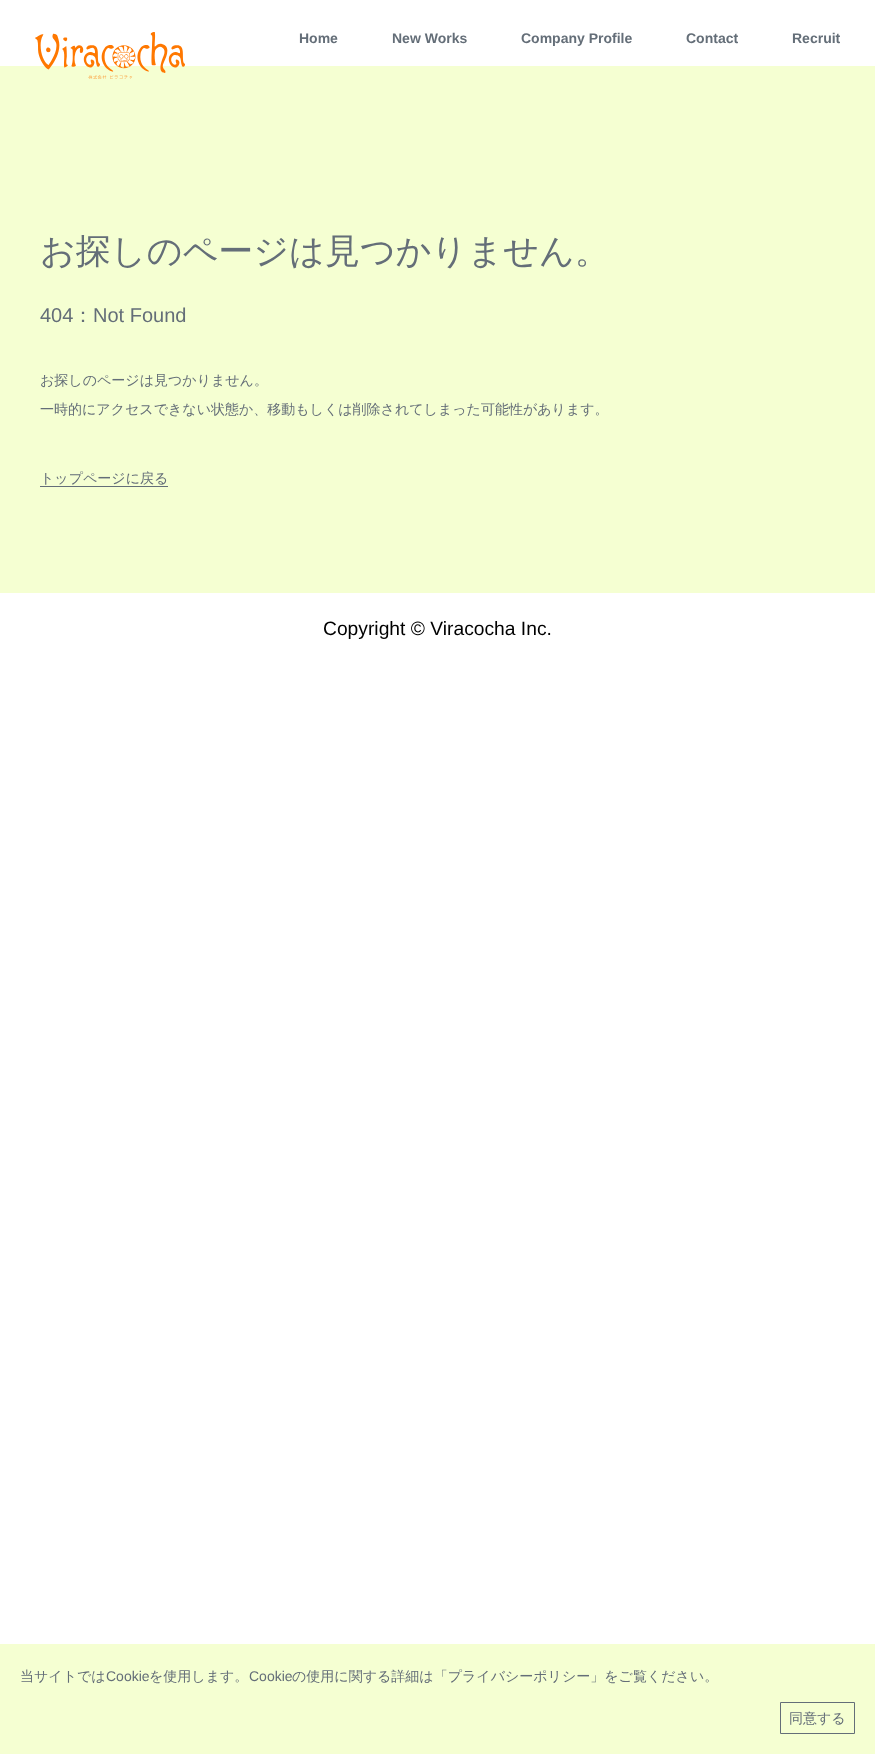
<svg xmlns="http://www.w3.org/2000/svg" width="875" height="1754">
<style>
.a{font:bold 14px Liberation Sans;fill:#646e78}
.b{font:500 35px WenQuanYi Zen Hei;fill:#646e78}
.c{font:20px Liberation Sans;fill:#646e78}
.d{font:500 20px WenQuanYi Zen Hei;fill:#646e78}
.e{font:500 14px WenQuanYi Zen Hei;fill:#646e78}
.f{font:19.25px Liberation Sans;fill:#000}
.g{font:14px Liberation Sans;fill:#646e78}
</style>
<rect width="100%" height="100%" fill="#fff"/>
<path fill="#f5ffd2" d="M0 66h875v527H0z"/>
<image href="1.png" x="35" y="32" width="150" height="47"/>
<path fill="#646e78" d="M40 486h128v1H40z"/>
<path fill="#f5ffd2" d="M0 1644h875v110H0z"/>
<path fill="none" stroke="#646e78" d="M780.5 1702.5h74v31H780.5z"/>
<text class="a" x="299" y="43">Home</text>
<text class="a" x="392" y="43">New Works</text>
<text class="a" x="521" y="43">Company Profile</text>
<text class="a" x="686" y="43">Contact</text>
<text class="a" x="792" y="43">Recruit</text>
<text class="b" x="40" y="263">お探しのページは見つかりません。</text>
<text class="c" x="40" y="322">404</text>
<text class="d" x="73" y="322">：</text>
<text class="c" x="93" y="322">Not Found</text>
<text class="e" x="40" y="385">お探しのページは見つかりません。</text>
<text class="e" x="40" y="414">一時的にアクセスできない状態か、移動もしくは削除されてしまった可能性があります。</text>
<text class="e" x="40" y="483">トップページに戻る</text>
<text class="f" x="323" y="635">Copyright © Viracocha Inc.</text>
<text class="e" x="20" y="1681">当サイトでは</text>
<text class="g" x="106" y="1681">Cookie</text>
<text class="e" x="149" y="1681">を使用します。</text>
<text class="g" x="249" y="1681">Cookie</text>
<text class="e" x="292" y="1681">の使用に関する詳細は「プライバシーポリシー」をご覧ください。</text>
<text class="e" x="789" y="1723">同意する</text>
</svg>
